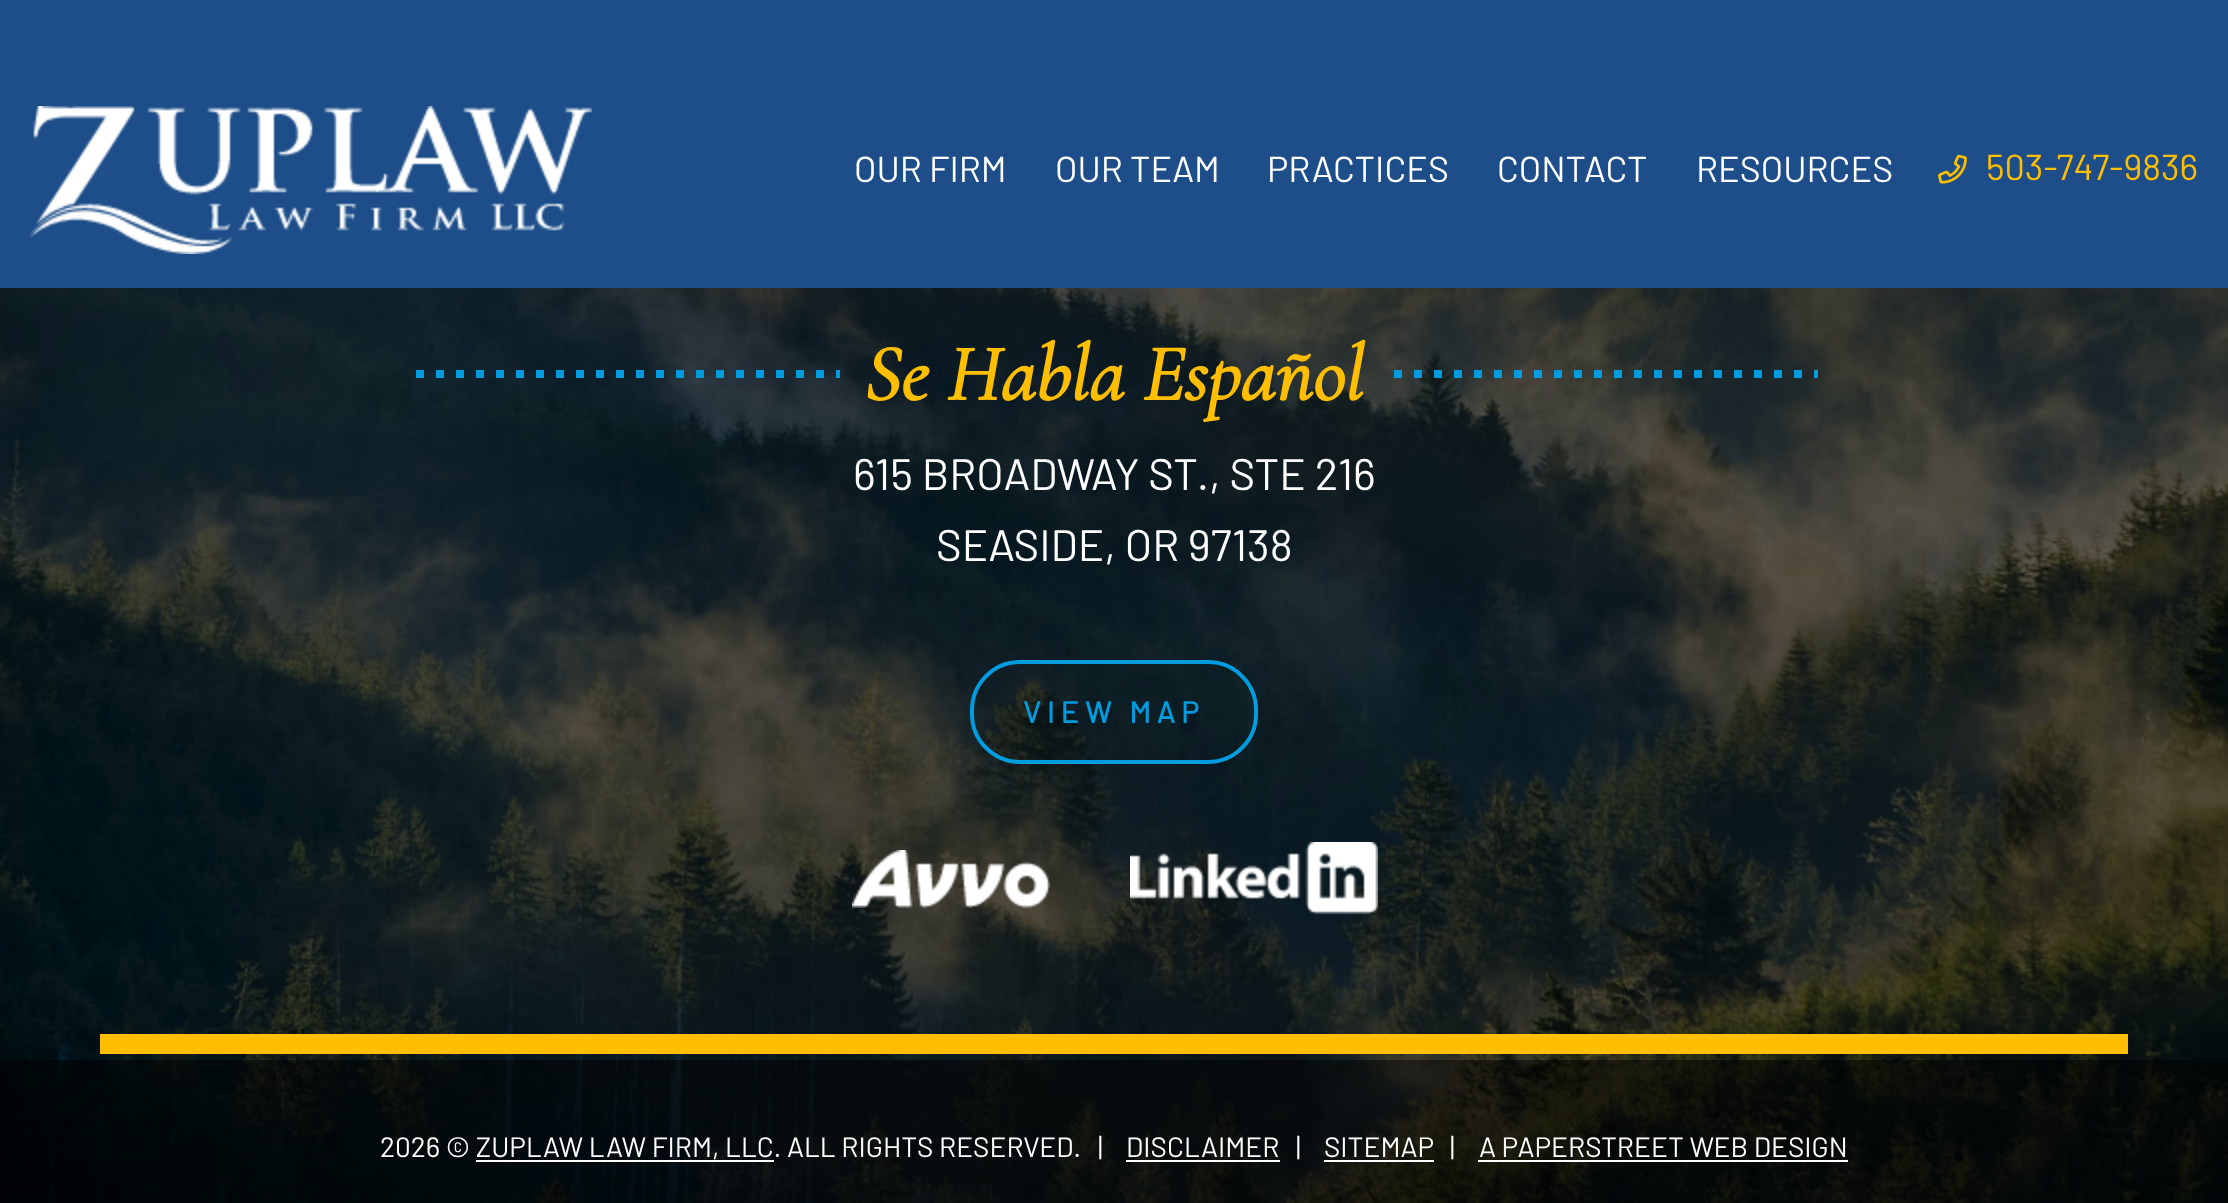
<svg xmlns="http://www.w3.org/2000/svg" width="2228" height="1203">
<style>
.a{font:36px Barlow;fill:#fff}
.b{font:36px Barlow;fill:#ffbf00}
.c{font:italic bold 80px Cormorant;fill:#ffbf00}
.d{font:44px Barlow;fill:#fff}
.e{font:bold 30px Barlow;letter-spacing:6px;fill:#009ce0}
.f{font:28px Barlow;fill:#fff}
</style>
<rect width="100%" height="100%" fill="#fff"/>
<path fill="#1d4e89" d="M0 0h2228v288H0z"/>
<image href="1.png" x="30" y="106" width="562" height="148"/>
<image href="2.png" x="1938" y="154" width="29" height="30"/>
<image href="3.png" x="0" y="288" width="2228" height="915"/>
<path fill="#ffbf00" d="M100 1034h2028v20H100z"/>
<image href="4.png" x="416" y="370" width="424" height="8"/>
<image href="5.png" x="1394" y="370" width="424" height="8"/>
<rect fill="none" stroke="#009ce0" stroke-width="4" x="972" y="662" width="284" height="100" rx="48"/>
<image href="6.png" x="852" y="850" width="198" height="58"/>
<image href="7.png" x="1130" y="842" width="248" height="72"/>
<path fill="#00000080" d="M0 1060h2228v143H0z"/>
<path fill="#fff" d="M476 1160h298v2H476z"/>
<path fill="#fff" d="M1126 1160h154v2H1126z"/>
<path fill="#fff" d="M1324 1160h110v2H1324z"/>
<path fill="#fff" d="M1478 1160h370v2H1478z"/>
<text class="a" x="854" y="182">OUR FIRM</text>
<text class="a" x="1055" y="182">OUR TEAM</text>
<text class="a" x="1267" y="182">PRACTICES</text>
<text class="a" x="1497" y="182">CONTACT</text>
<text class="a" x="1696" y="182">RESOURCES</text>
<text class="b" x="1986" y="180">503-747-9836</text>
<text class="c" x="864" y="400">Se Habla Español</text>
<text class="d" x="853" y="490">615 BROADWAY ST., STE 216</text>
<text class="d" x="936" y="561">SEASIDE, OR 97138</text>
<text class="e" x="1023" y="723">VIEW MAP</text>
<text class="f" x="380" y="1157">2026 © ZUPLAW LAW FIRM, LLC. ALL RIGHTS RESERVED.</text>
<text class="f" x="1098" y="1157">|</text>
<text class="f" x="1126" y="1157">DISCLAIMER</text>
<text class="f" x="1296" y="1157">|</text>
<text class="f" x="1324" y="1157">SITEMAP</text>
<text class="f" x="1450" y="1157">|</text>
<text class="f" x="1479" y="1157">A PAPERSTREET WEB DESIGN</text>
</svg>
